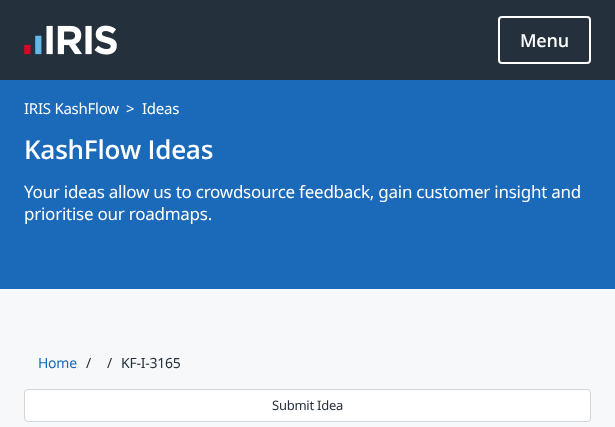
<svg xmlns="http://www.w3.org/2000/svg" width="615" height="427">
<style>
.a{font:600 18px Open Sans;letter-spacing:-0.25px;fill:#fff}
.b{font:15px Noto Sans;letter-spacing:-0.25px;fill:#fff}
.c{font:600 26px Open Sans;letter-spacing:-0.25px;fill:#fff}
.d{font:17px Noto Sans;letter-spacing:-0.25px;fill:#fff}
.e{font:14px Noto Sans;letter-spacing:-0.25px;fill:#1b69b9}
.f{font:14px Noto Sans;letter-spacing:-0.25px;fill:#24303b}
.g{font:13px Noto Sans;letter-spacing:-0.25px;fill:#24303b}
</style>
<rect width="100%" height="100%" fill="#1b69b9"/>
<path fill="#24303b" d="M0 0h615v80H0z"/>
<image href="1.png" x="24" y="25" width="93" height="30"/>
<rect fill="none" stroke="#fff" stroke-width="2" x="499" y="17" width="91" height="46" rx="3"/>
<path fill="#f7f8fa" d="M0 289h615v138H0z"/>
<rect fill="#fff" stroke="#d3d6d8" x="24.5" y="389.5" width="566" height="32" rx="3.5"/>
<text class="a" x="520" y="47">Menu</text>
<text class="b" x="24" y="114">IRIS KashFlow</text>
<text class="b" x="126" y="114">&gt;</text>
<text class="b" x="142" y="114">Ideas</text>
<text class="c" x="24" y="159">KashFlow Ideas</text>
<text class="d" x="24" y="198">Your ideas allow us to crowdsource feedback, gain customer insight and</text>
<text class="d" x="24" y="220">prioritise our roadmaps.</text>
<text class="e" x="38" y="368">Home</text>
<text class="f" x="86" y="368">/</text>
<text class="f" x="107" y="368">/</text>
<text class="f" x="121" y="368">KF-I-3165</text>
<text class="g" x="272" y="410">Submit Idea</text>
</svg>
